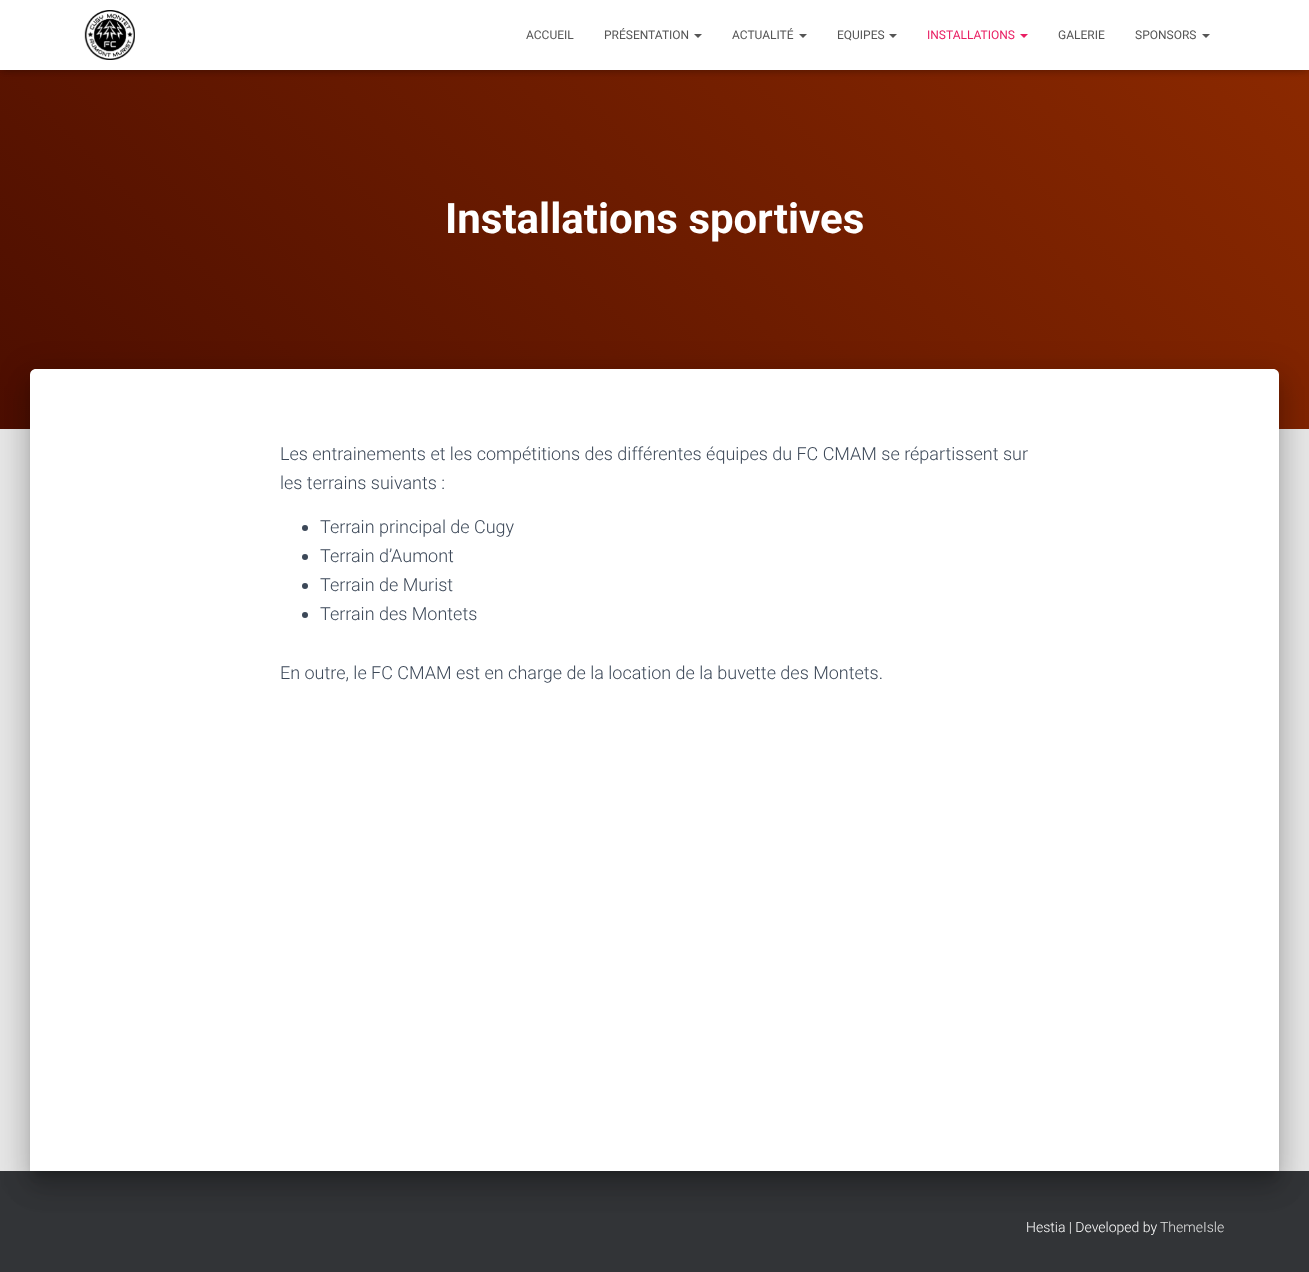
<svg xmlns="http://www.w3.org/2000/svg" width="1309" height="1272">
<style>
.a{font:12px Roboto;fill:#555}
.b{font:12px Roboto;fill:#e91e63}
.c{font:bold 42px Roboto;fill:#fff}
.d{font:300 18px Roboto;fill:#3c4858}
.e{font:300 14px Roboto;fill:#fff}
.f{font:300 14px Roboto;fill:#e2e3e3}
</style>
<defs>
<linearGradient id="g1" gradientUnits="userSpaceOnUse" x1="220" y1="649" x2="1089" y2="-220"><stop offset="0" stop-color="#4c0e00"/><stop offset="1" stop-color="#8e2a00"/></linearGradient>
</defs>
<rect width="100%" height="100%" fill="#e5e5e5"/>
<path fill="url(#g1)" d="M0 70h1309v359H0z"/>
<path fill="#0000001a" filter="blur(2.5px)" d="M2 6h1305v66H2z"/>
<path fill="#0000001f" filter="blur(5px)" d="M0 1h1309v70H0z"/>
<path fill="#0000006b" filter="blur(5px)" d="M6 7h1297v58H6z"/>
<path fill="#fff" d="M0 0h1309v70H0z"/>
<image href="1.png" x="84" y="10" width="51" height="50"/>
<path fill="#555" d="M694 34h8l-4 4z"/>
<path fill="#555" d="M799 34h8l-4 4z"/>
<path fill="#555" d="M889 34h8l-4 4z"/>
<path fill="#e91e63" d="M1020 34h8l-4 4z"/>
<path fill="#555" d="M1202 34h8l-4 4z"/>
<path fill="#323437" d="M0 1171h1309v101H0z"/>
<rect fill="#00000033" filter="blur(5px)" x="35" y="382" width="1239" height="792" rx="1"/>
<rect fill="#0000001f" filter="blur(15px)" x="25" y="370" width="1259" height="812" rx="11"/>
<rect fill="#00000024" filter="blur(12px)" x="28" y="383" width="1253" height="806" rx="8"/>
<path fill="#fff" d="M36 369h1237c3.5 0 6 2.5 6 6v796h-1249v-796c0-3.5 2.5-6 6-6z"/>
<circle fill="#3c4858" cx="305" cy="528" r="3"/>
<circle fill="#3c4858" cx="305" cy="557" r="3"/>
<circle fill="#3c4858" cx="305" cy="586" r="3"/>
<circle fill="#3c4858" cx="305" cy="615" r="3"/>
<text class="a" x="526" y="39">ACCUEIL</text>
<text class="a" x="604" y="39">PRÉSENTATION</text>
<text class="a" x="732" y="39">ACTUALITÉ</text>
<text class="a" x="837" y="39">EQUIPES</text>
<text class="b" x="927" y="39">INSTALLATIONS</text>
<text class="a" x="1058" y="39">GALERIE</text>
<text class="a" x="1135" y="39">SPONSORS</text>
<text class="c" x="445" y="233">Installations sportives</text>
<text class="d" x="280" y="460">Les entrainements et les compétitions des différentes équipes du FC CMAM se répartissent sur</text>
<text class="d" x="280" y="489">les terrains suivants :</text>
<text class="d" x="320" y="533">Terrain principal de Cugy</text>
<text class="d" x="320" y="562">Terrain d’Aumont</text>
<text class="d" x="320" y="591">Terrain de Murist</text>
<text class="d" x="320" y="620">Terrain des Montets</text>
<text class="d" x="280" y="679">En outre, le FC CMAM est en charge de la location de la buvette des Montets.</text>
<text class="e" x="1026" y="1232">Hestia | Developed by</text>
<text class="f" x="1160" y="1232">ThemeIsle</text>
</svg>
